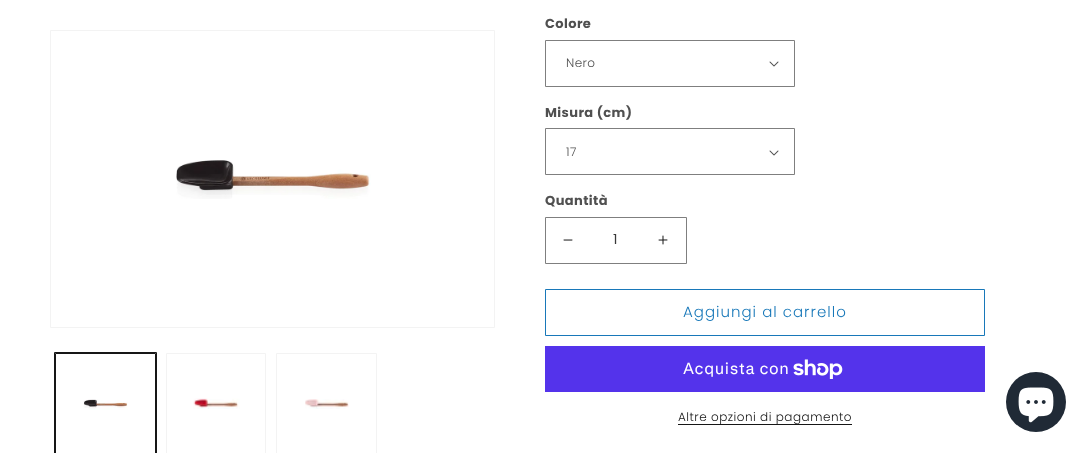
<svg xmlns="http://www.w3.org/2000/svg" width="1088" height="453">
<style>
.a{font:bold 13px Poppins;letter-spacing:0.4px;fill:#505050}
.b{font:300 12px Poppins;letter-spacing:0.4px;fill:#505050}
.c{font:14px Poppins;fill:#393939}
.d{font:300 15px Poppins;letter-spacing:1px;fill:#1878b9}
.e{font:16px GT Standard;letter-spacing:0.6px;fill:#fff}
.f{font:300 12px Poppins;letter-spacing:0.5px;fill:#161616}
</style>
<rect width="100%" height="100%" fill="#fff"/>
<path fill="none" stroke="#f3f3f3" d="M50.5 30.5h444v297H50.5z"/>
<image href="1.png" x="176" y="160" width="195" height="39"/>
<path fill="none" stroke="#161616" d="M54.5 352.5h102v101H54.5z"/>
<path fill="none" stroke="#161616" d="M55.5 353.5h100v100H55.5z"/>
<image href="2.png" x="83" y="399" width="45" height="11"/>
<path fill="none" stroke="#f3f3f3" d="M166.5 353.5h99v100H166.5z"/>
<image href="3.png" x="193" y="398" width="47" height="11"/>
<path fill="none" stroke="#f3f3f3" d="M276.5 353.5h100v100H276.5z"/>
<image href="4.png" x="305" y="399" width="44" height="10"/>
<image href="5.png" x="769" y="61" width="10" height="6"/>
<path fill="none" stroke="#7f7f7f" d="M545.5 40.5h249v46H545.5z"/>
<image href="5.png" x="769" y="150" width="10" height="6"/>
<path fill="none" stroke="#7f7f7f" d="M545.5 128.5h249v46H545.5z"/>
<image href="6.png" x="563" y="239" width="10" height="2"/>
<image href="7.png" x="658" y="235" width="10" height="10"/>
<path fill="none" stroke="#7f7f7f" d="M545.5 217.5h141v46H545.5z"/>
<path fill="none" stroke="#1878b9" d="M545.5 289.5h439v46H545.5z"/>
<path fill="#5433eb" d="M545 346h440v46H545z"/>
<image href="8.png" x="793" y="359" width="50" height="20"/>
<path fill="#161616" d="M678 424h174v1H678z"/>
<circle fill="#202a36" cx="1036" cy="402" r="30"/>
<image href="9.png" x="1018" y="387" width="36" height="36"/>
<text class="a" x="545" y="28">Colore</text>
<text class="b" x="566" y="67">Nero</text>
<text class="a" x="545" y="117">Misura (cm)</text>
<text class="b" x="566" y="156">17</text>
<text class="a" x="545" y="205">Quantità</text>
<text class="c" x="613" y="244">1</text>
<text class="d" x="683" y="317">Aggiungi al carrello</text>
<text class="e" x="683" y="374">Acquista con</text>
<text class="f" x="678" y="421">Altre opzioni di pagamento</text>
</svg>
